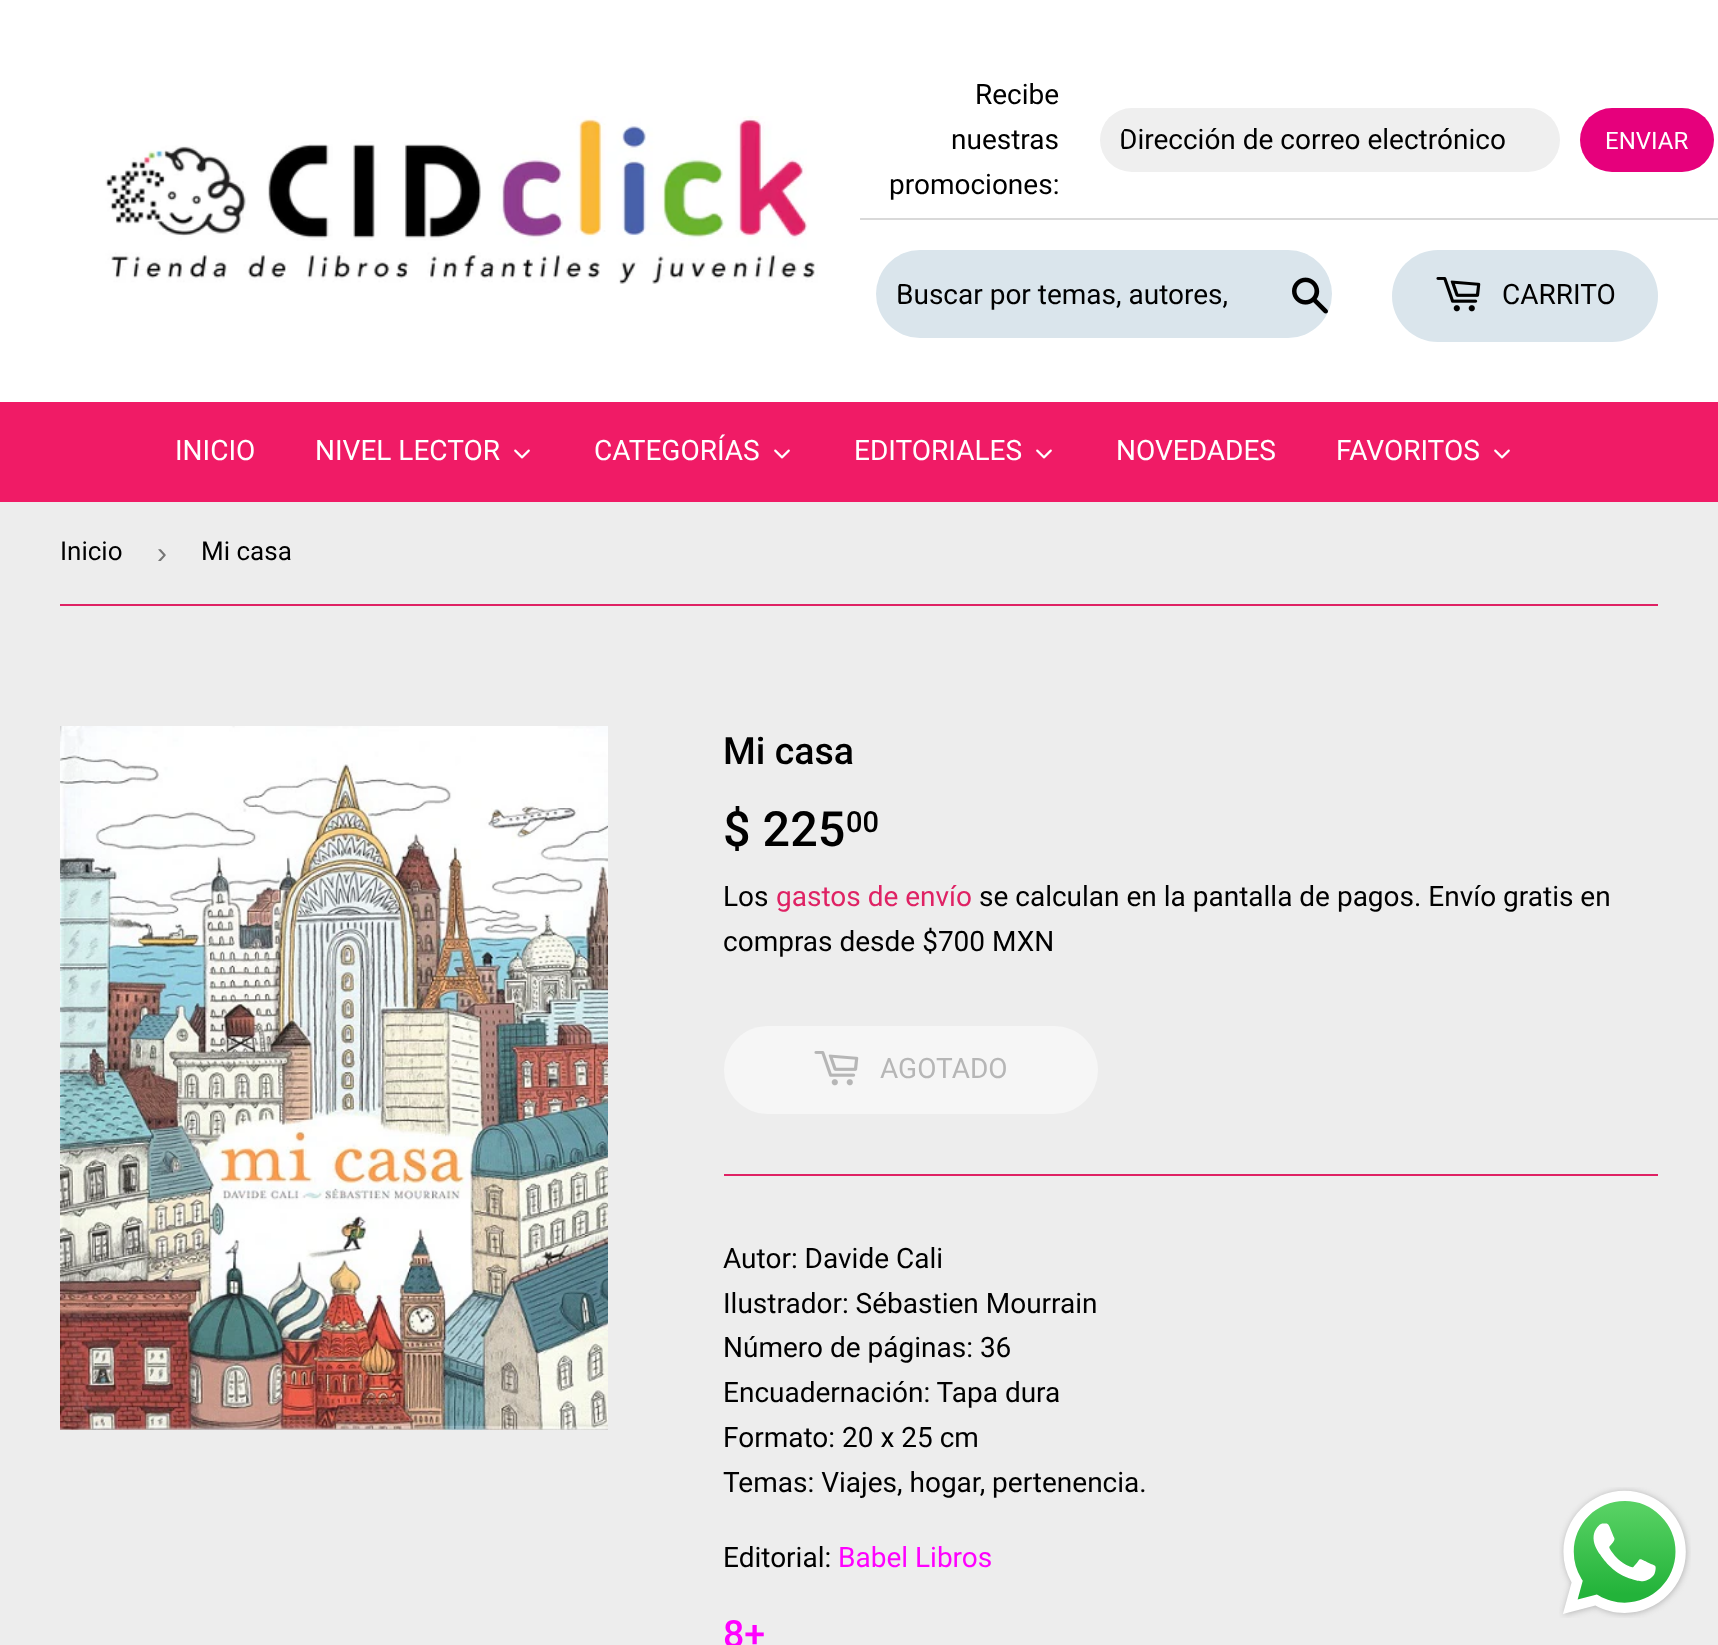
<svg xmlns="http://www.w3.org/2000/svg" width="1718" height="1645">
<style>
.a{font:28px Roboto;fill:#000}
.b{font:24px Roboto;fill:#fff}
.c{font:28px Roboto;fill:#fff}
.d{font:26px Roboto;fill:#000}
.e{font:30px Liberation Sans;fill:#767676}
.f{font:500 37.5px Roboto;fill:#000}
.g{font:500 48.5px Roboto;fill:#000}
.h{font:500 29px Roboto;fill:#000}
.i{font:28px Roboto;fill:#df2264}
.j{font:28px Roboto;fill:#b6b6b6}
.k{font:28px Roboto;fill:#f0f}
.l{font:500 37.5px Roboto;fill:#f0f}
</style>
<defs>
<clipPath id="clip1"><rect x="1120" y="124" width="420" height="32" rx="16"/></clipPath>
<clipPath id="clip2"><rect x="896" y="278" width="338" height="32" rx="16"/></clipPath>
</defs>
<rect width="100%" height="100%" fill="#ededed"/>
<path fill="#fff" d="M0 0h1718v402H0z"/>
<image href="1.png" x="105" y="116" width="713" height="168"/>
<path fill="#d9d9d9" d="M860 218h858v2H860z"/>
<rect fill="#efefef" x="1100" y="108" width="460" height="64" rx="32"/>
<rect fill="#e6007c" x="1580" y="108" width="134" height="64" rx="32"/>
<rect fill="#dae5ec" x="876" y="250" width="456" height="88" rx="44"/>
<image href="2.png" x="1292" y="277" width="36" height="37"/>
<rect fill="#dae5ec" x="1392" y="250" width="266" height="92" rx="46"/>
<image href="3.png" x="1436" y="277" width="45" height="35"/>
<path fill="#f01b66" d="M0 402h1718v100H0z"/>
<image href="4.png" x="514" y="449" width="16" height="10"/>
<image href="4.png" x="774" y="449" width="16" height="10"/>
<image href="4.png" x="1036" y="449" width="16" height="10"/>
<image href="4.png" x="1494" y="449" width="16" height="10"/>
<path fill="#df2264" d="M60 604h1598v2H60z"/>
<image href="5.png" x="60" y="726" width="548" height="704"/>
<rect fill="#f6f6f6" x="724" y="1026" width="374" height="88" rx="44"/>
<image href="6.png" x="814" y="1051" width="45" height="35"/>
<path fill="#df2264" d="M724 1174h934v2H724z"/>
<image href="7.png" x="1559" y="1487" width="132" height="131"/>
<text class="a" x="975" y="104">Recibe</text>
<text class="a" x="951" y="149">nuestras</text>
<text class="a" x="889" y="194">promociones:</text>
<g clip-path="url(#clip1)">
<text class="a" x="1119" y="149">Dirección de correo electrónico</text>
</g>
<text class="b" x="1605" y="149">ENVIAR</text>
<g clip-path="url(#clip2)">
<text class="a" x="896" y="304">Buscar por temas, autores,</text>
</g>
<text class="a" x="1502" y="304">CARRITO</text>
<text class="c" x="175" y="460">INICIO</text>
<text class="c" x="315" y="460">NIVEL LECTOR</text>
<text class="c" x="594" y="460">CATEGORÍAS</text>
<text class="c" x="854" y="460">EDITORIALES</text>
<text class="c" x="1116" y="460">NOVEDADES</text>
<text class="c" x="1336" y="460">FAVORITOS</text>
<text class="d" x="60" y="560">Inicio</text>
<text class="e" x="157" y="563">›</text>
<text class="d" x="201" y="560">Mi casa</text>
<text class="f" x="723" y="764">Mi casa</text>
<text class="g" x="723" y="846">$ 225</text>
<text class="h" x="846" y="832">00</text>
<text class="a" x="723" y="906">Los</text>
<text class="i" x="776" y="906">gastos de envío</text>
<text class="a" x="979" y="906">se calculan en la pantalla de pagos. Envío gratis en</text>
<text class="a" x="723" y="951">compras desde $700 MXN</text>
<text class="j" x="880" y="1078">AGOTADO</text>
<text class="a" x="723" y="1268">Autor: Davide Cali</text>
<text class="a" x="723" y="1313">Ilustrador: Sébastien Mourrain</text>
<text class="a" x="723" y="1357">Número de páginas: 36</text>
<text class="a" x="723" y="1402">Encuadernación: Tapa dura</text>
<text class="a" x="723" y="1447">Formato: 20 x 25 cm</text>
<text class="a" x="723" y="1492">Temas: Viajes, hogar, pertenencia.</text>
<text class="a" x="723" y="1567">Editorial:</text>
<text class="k" x="838" y="1567">Babel Libros</text>
<text class="l" x="723" y="1647">8+</text>
</svg>
